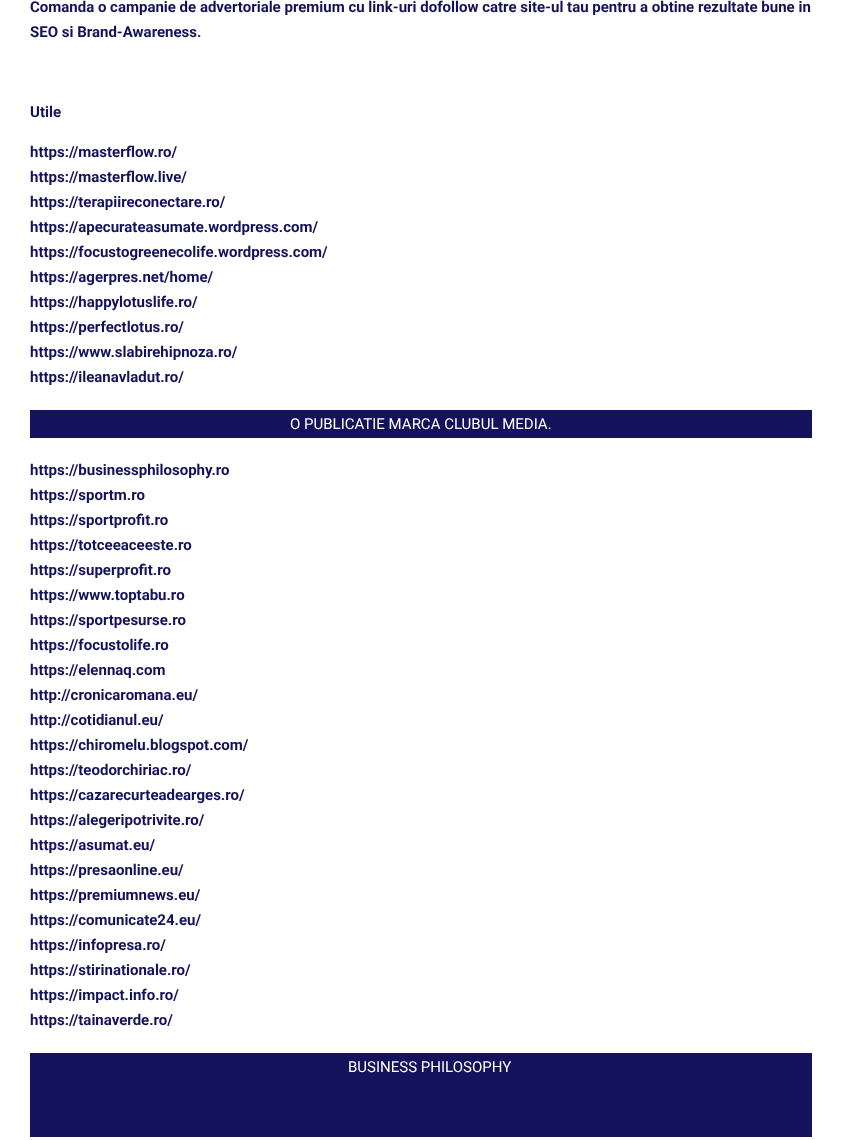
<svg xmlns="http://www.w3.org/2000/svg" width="842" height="1140">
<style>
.a{font:bold 15px Roboto;fill:#14125b}
.b{font:15px Roboto;fill:#fff}
</style>
<rect width="100%" height="100%" fill="#fff"/>
<path fill="#14125b" d="M30 410h782v28H30z"/>
<path fill="#14125b" d="M30 1053h782v84H30z"/>
<text class="a" x="30" y="12">Comanda o campanie de advertoriale premium cu link-uri dofollow catre site-ul tau pentru a obtine rezultate bune in</text>
<text class="a" x="30" y="37">SEO si Brand-Awareness.</text>
<text class="a" x="30" y="117">Utile</text>
<text class="a" x="30" y="157">https://masterflow.ro/</text>
<text class="a" x="30" y="182">https://masterflow.live/</text>
<text class="a" x="30" y="207">https://terapiireconectare.ro/</text>
<text class="a" x="30" y="232">https://apecurateasumate.wordpress.com/</text>
<text class="a" x="30" y="257">https://focustogreenecolife.wordpress.com/</text>
<text class="a" x="30" y="282">https://agerpres.net/home/</text>
<text class="a" x="30" y="307">https://happylotuslife.ro/</text>
<text class="a" x="30" y="332">https://perfectlotus.ro/</text>
<text class="a" x="30" y="357">https://www.slabirehipnoza.ro/</text>
<text class="a" x="30" y="382">https://ileanavladut.ro/</text>
<text class="b" x="290" y="429">O PUBLICATIE MARCA CLUBUL MEDIA.</text>
<text class="a" x="30" y="475">https://businessphilosophy.ro</text>
<text class="a" x="30" y="500">https://sportm.ro</text>
<text class="a" x="30" y="525">https://sportprofit.ro</text>
<text class="a" x="30" y="550">https://totceeaceeste.ro</text>
<text class="a" x="30" y="575">https://superprofit.ro</text>
<text class="a" x="30" y="600">https://www.toptabu.ro</text>
<text class="a" x="30" y="625">https://sportpesurse.ro</text>
<text class="a" x="30" y="650">https://focustolife.ro</text>
<text class="a" x="30" y="675">https://elennaq.com</text>
<text class="a" x="30" y="700">http://cronicaromana.eu/</text>
<text class="a" x="30" y="725">http://cotidianul.eu/</text>
<text class="a" x="30" y="750">https://chiromelu.blogspot.com/</text>
<text class="a" x="30" y="775">https://teodorchiriac.ro/</text>
<text class="a" x="30" y="800">https://cazarecurteadearges.ro/</text>
<text class="a" x="30" y="825">https://alegeripotrivite.ro/</text>
<text class="a" x="30" y="850">https://asumat.eu/</text>
<text class="a" x="30" y="875">https://presaonline.eu/</text>
<text class="a" x="30" y="900">https://premiumnews.eu/</text>
<text class="a" x="30" y="925">https://comunicate24.eu/</text>
<text class="a" x="30" y="950">https://infopresa.ro/</text>
<text class="a" x="30" y="975">https://stirinationale.ro/</text>
<text class="a" x="30" y="1000">https://impact.info.ro/</text>
<text class="a" x="30" y="1025">https://tainaverde.ro/</text>
<text class="b" x="348" y="1072">BUSINESS PHILOSOPHY</text>
</svg>
